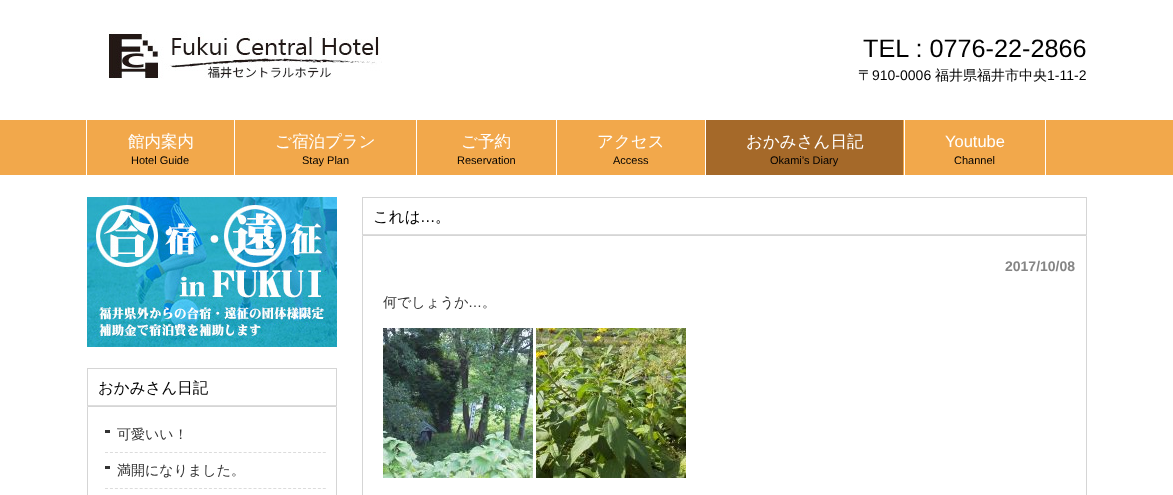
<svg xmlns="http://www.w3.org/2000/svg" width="1173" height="495">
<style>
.a{font:25.25px Liberation Sans;fill:#000}
.b{font:500 14px WenQuanYi Zen Hei;fill:#000}
.c{font:14px Liberation Sans;fill:#000}
.d{font:500 16.5px WenQuanYi Zen Hei;fill:#fff}
.e{font:11px Liberation Sans;fill:#000}
.f{font:16.5px Liberation Sans;fill:#fff}
.g{font:500 15.5px WenQuanYi Zen Hei;fill:#000}
.h{font:15.5px Liberation Sans;fill:#000}
.i{font:bold 14px Liberation Sans;fill:#858585}
.j{font:500 14px WenQuanYi Zen Hei;fill:#333}
.k{font:14px Liberation Sans;fill:#333}
</style>
<rect width="100%" height="100%" fill="#fff"/>
<image href="1.png" x="108" y="31" width="274" height="48"/>
<path fill="#f2a84b" d="M0 120h1173v55H0z"/>
<path fill="#fff" d="M86 120h1v55H86z"/>
<path fill="#fff" d="M234 120h1v55H234z"/>
<path fill="#fff" d="M416 120h1v55H416z"/>
<path fill="#fff" d="M556 120h1v55H556z"/>
<path fill="#fff" d="M705 120h1v55H705z"/>
<path fill="#fff" d="M904 120h1v55H904z"/>
<path fill="#a56929" d="M706 120h197v55H706z"/>
<path fill="#fff" d="M1045 120h1v55H1045z"/>
<path fill="#ddd" d="M362 234h725v1H362z"/>
<path fill="#d5d5d5" d="M362 197h725v1H362z"/>
<path fill="#d5d5d5" d="M1086 197h1v38H1086z"/>
<path fill="#d5d5d5" d="M362 197h1v38H362z"/>
<path fill="none" stroke="#d5d5d5" d="M362.5 235.5h724v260H362.5z"/>
<image href="2.png" x="383" y="328" width="150" height="150"/>
<image href="3.png" x="536" y="328" width="150" height="150"/>
<image href="4.png" x="87" y="197" width="250" height="150"/>
<path fill="#ddd" d="M87 405h250v1H87z"/>
<path fill="#d5d5d5" d="M87 368h250v1H87z"/>
<path fill="#d5d5d5" d="M336 368h1v38H336z"/>
<path fill="#d5d5d5" d="M87 368h1v38H87z"/>
<path fill="none" stroke="#d5d5d5" d="M87.5 406.5h249v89H87.5z"/>
<path fill="#333" d="M105 430h5v3H105z"/>
<path fill="none" stroke="#dcdcdc" stroke-dasharray="3 1.95" d="M105 452.5h221"/>
<path fill="#333" d="M105 466h5v3H105z"/>
<path fill="none" stroke="#dcdcdc" stroke-dasharray="3 1.95" d="M105 488.5h221"/>
<text class="a" x="863" y="57">TEL : 0776-22-2866</text>
<text class="b" x="858" y="80">〒</text>
<text class="c" x="872" y="80">910-0006</text>
<text class="b" x="935" y="80">福井県福井市中央</text>
<text class="c" x="1047" y="80">1-11-2</text>
<text class="d" x="128" y="147">館内案内</text>
<text class="e" x="131" y="164">Hotel Guide</text>
<text class="d" x="275" y="147">ご宿泊プラン</text>
<text class="e" x="302" y="164">Stay Plan</text>
<text class="d" x="461" y="147">ご予約</text>
<text class="e" x="457" y="164">Reservation</text>
<text class="d" x="597" y="147">アクセス</text>
<text class="e" x="613" y="164">Access</text>
<text class="d" x="746" y="147">おかみさん日記</text>
<text class="e" x="770" y="164">Okami’s Diary</text>
<text class="f" x="945" y="147">Youtube</text>
<text class="e" x="954" y="164">Channel</text>
<text class="g" x="373" y="222">これは</text>
<text class="h" x="420" y="222">…</text>
<text class="g" x="435" y="222">。</text>
<text class="i" x="1005" y="271">2017/10/08</text>
<text class="j" x="383" y="307">何でしょうか</text>
<text class="k" x="468" y="307">…</text>
<text class="j" x="482" y="307">。</text>
<text class="g" x="98" y="393">おかみさん日記</text>
<text class="j" x="117" y="439">可愛いい！</text>
<text class="j" x="117" y="475">満開になりました。</text>
</svg>
